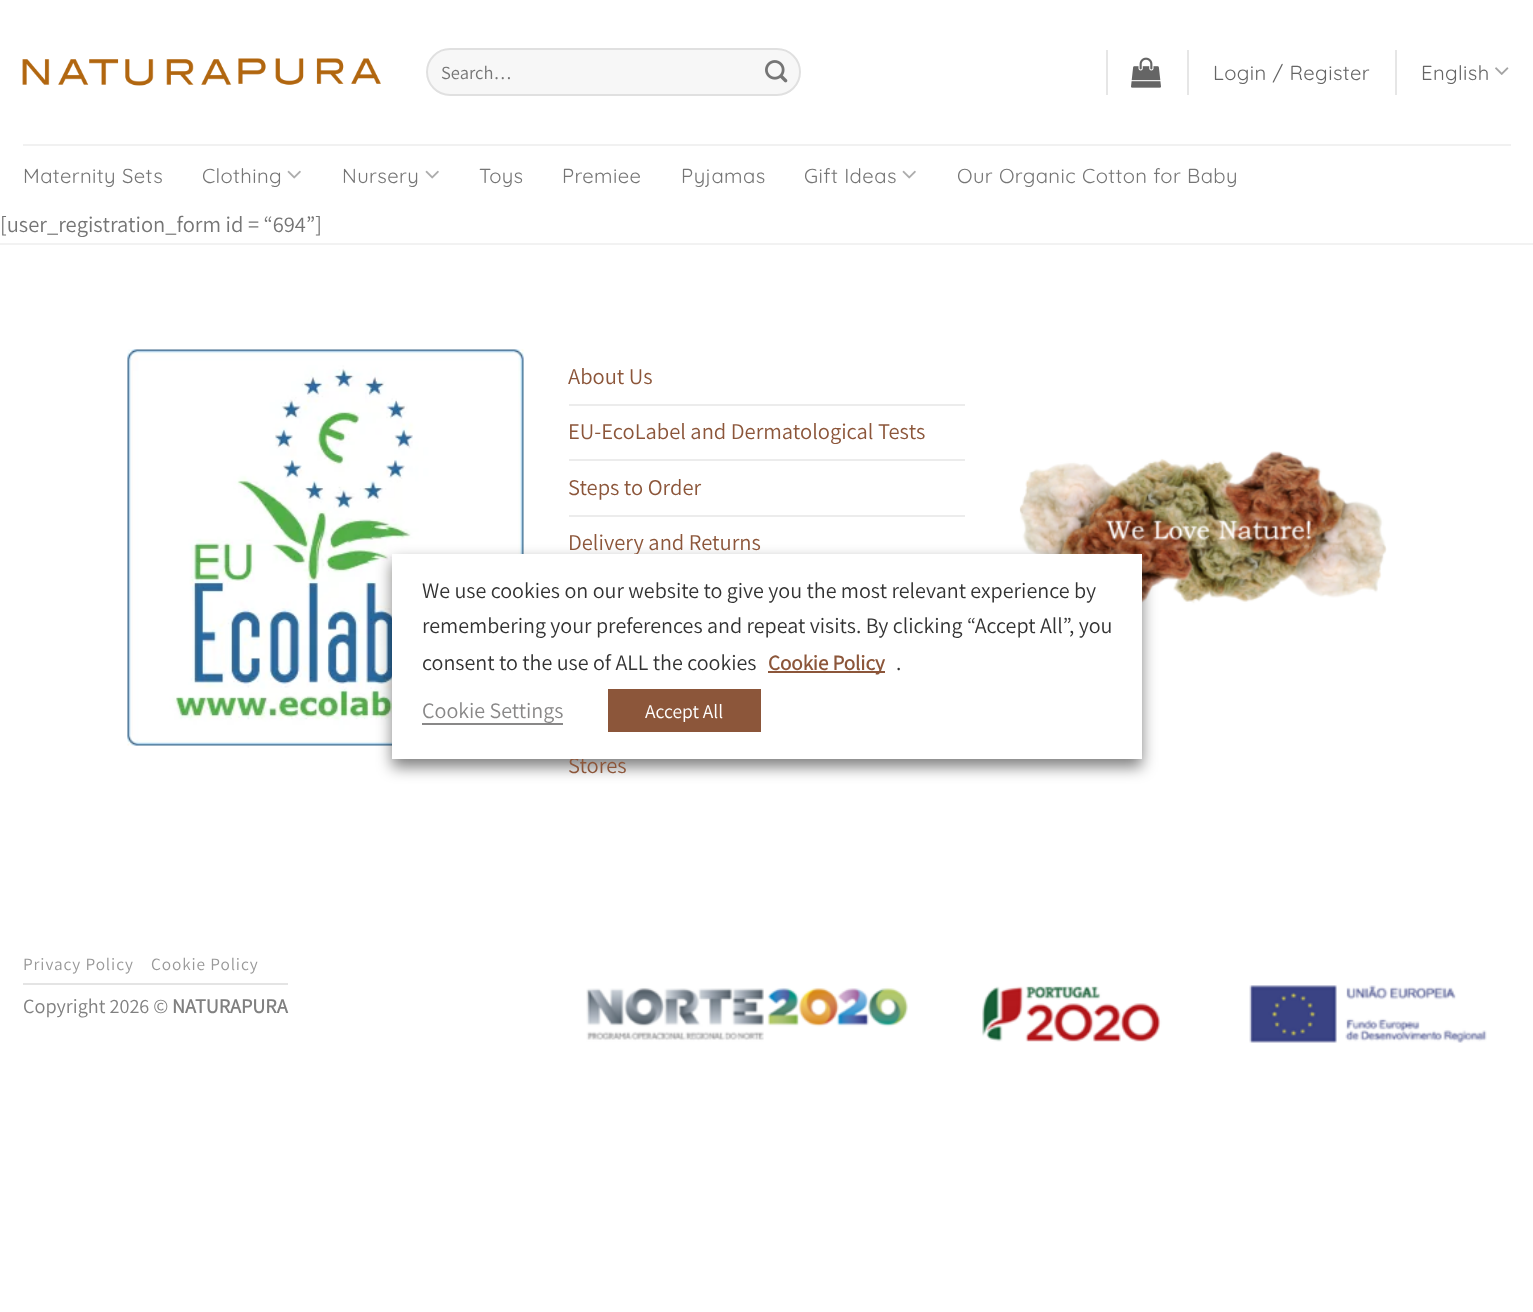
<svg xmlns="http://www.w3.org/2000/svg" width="1533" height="1312">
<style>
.a{font:200 18.5px Assistant;fill:#757575}
.b{font:20.25px Quicksand;letter-spacing:0.4px;fill:#656565}
.c{font:20.25px Quicksand;letter-spacing:0.4px;fill:#757575}
.d{font:200 22.5px Assistant;fill:#757575}
.e{font:200 22.5px Assistant;fill:#8c563a}
.f{font:200 17.25px Assistant;letter-spacing:0.9px;fill:#999}
.g{font:200 20.25px Assistant;fill:#808080}
.h{font:bold 20.25px Assistant;fill:#808080}
.i{font:200 22px Assistant;fill:#333}
.j{font:bold 21px Assistant;fill:#8c563a}
.k{font:200 22px Assistant;fill:#898888}
.l{font:200 19.5px Assistant;fill:#fff}
</style>
<rect width="100%" height="100%" fill="#fff"/>
<image href="1.png" x="22" y="58" width="359" height="28"/>
<rect fill="#f7f7f7" x="426" y="48" width="375" height="48" rx="24"/>
<rect fill="none" stroke="#00000017" stroke-width="2" x="427" y="49" width="373" height="46" rx="23"/>
<image href="2.png" x="765" y="60" width="23" height="23"/>
<path fill="#e6e6e6" d="M1106 50h2v45H1106z"/>
<image href="3.png" x="1131" y="57" width="30" height="31"/>
<path fill="#e6e6e6" d="M1187 50h2v45H1187z"/>
<path fill="#e6e6e6" d="M1395 50h2v45H1395z"/>
<image href="4.png" x="1495" y="67" width="14" height="8"/>
<path fill="#f1f1f1" d="M23 144h1488v2H23z"/>
<image href="5.png" x="287" y="170" width="14" height="9"/>
<image href="5.png" x="425" y="170" width="14" height="9"/>
<image href="5.png" x="902" y="170" width="14" height="9"/>
<path fill="#f2f2f2" d="M0 243h1533v2H0z"/>
<image href="6.png" x="127" y="349" width="397" height="397"/>
<path fill="#ececec" d="M569 404h396v2H569z"/>
<path fill="#ececec" d="M569 459h396v2H569z"/>
<path fill="#ececec" d="M569 515h396v2H569z"/>
<image href="7.png" x="1019" y="451" width="368" height="160"/>
<path fill="#e4e4e4" d="M23 983h265v2H23z"/>
<image href="8.png" x="586" y="985" width="901" height="58"/>
<path fill="#00000080" filter="blur(7.5px)" d="M392 561h750v206H392z"/>
<text class="a" x="441" y="79">Search…</text>
<text class="b" x="1213" y="80">Login / Register</text>
<text class="b" x="1421" y="80">English</text>
<text class="c" x="23" y="183">Maternity Sets</text>
<text class="c" x="202" y="183">Clothing</text>
<text class="c" x="342" y="183">Nursery</text>
<text class="c" x="479" y="183">Toys</text>
<text class="c" x="562" y="183">Premiee</text>
<text class="c" x="681" y="183">Pyjamas</text>
<text class="c" x="804" y="183">Gift Ideas</text>
<text class="c" x="957" y="183">Our Organic Cotton for Baby</text>
<text class="d" x="0" y="232">[user_registration_form id = “694”]</text>
<text class="e" x="568" y="384">About Us</text>
<text class="e" x="568" y="439">EU-EcoLabel and Dermatological Tests</text>
<text class="e" x="568" y="495">Steps to Order</text>
<text class="e" x="568" y="550">Delivery and Returns</text>
<text class="e" x="568" y="773">Stores</text>
<text class="f" x="23" y="970">Privacy Policy</text>
<text class="f" x="151" y="970">Cookie Policy</text>
<text class="g" x="23" y="1013">Copyright 2026 ©</text>
<text class="h" x="172" y="1013">NATURAPURA</text>
<path fill="#fff" d="M392 554h750v205H392z"/>
<text class="i" x="422" y="598">We use cookies on our website to give you the most relevant experience by</text>
<text class="i" x="422" y="633">remembering your preferences and repeat visits. By clicking “Accept All”, you</text>
<text class="i" x="422" y="670">consent to the use of ALL the cookies</text>
<path fill="#8c563a" d="M768 671h117v2H768z"/>
<text class="j" x="768" y="670">Cookie Policy</text>
<text class="i" x="896" y="670">.</text>
<text class="k" x="422" y="718">Cookie Settings</text>
<path fill="#898888" d="M422 723h141v2H422z"/>
<path fill="#8c563a" d="M608 689h153v43H608z"/>
<text class="l" x="645" y="718">Accept All</text>
</svg>
